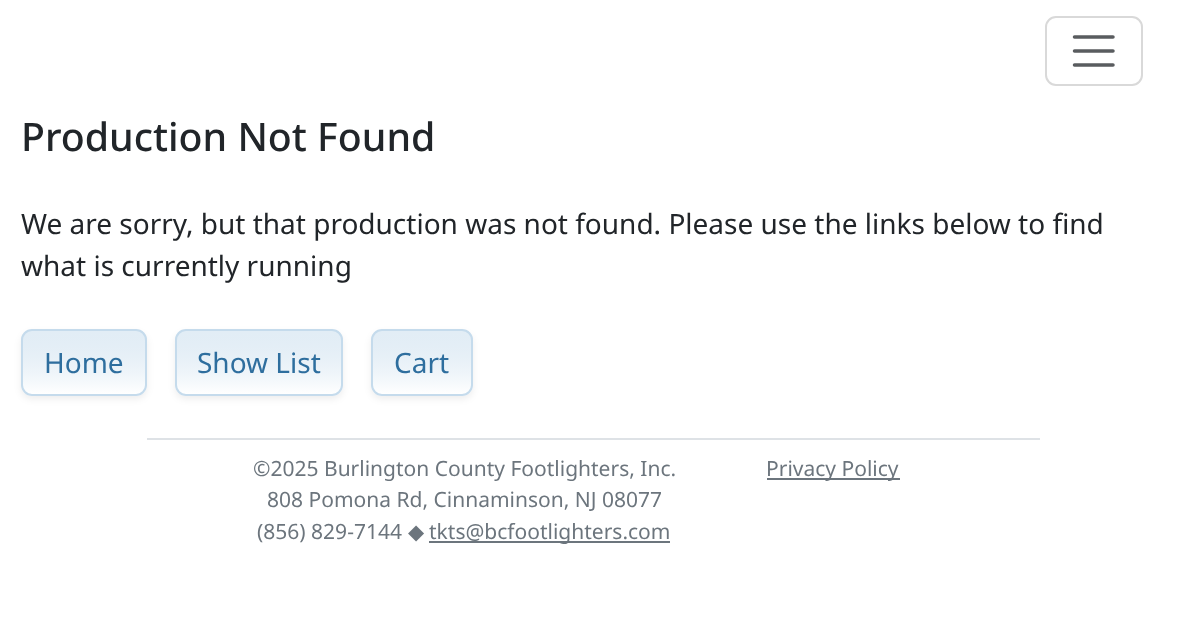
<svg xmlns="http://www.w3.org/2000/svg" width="1184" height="622">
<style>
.a{font:500 39.25px Noto Sans;fill:#212529}
.b{font:28px Noto Sans;fill:#212529}
.c{font:28px Noto Sans;fill:#2e6e9e}
.d{font:21px Noto Sans;fill:#6c757d}
.e{font:21px DejaVu Sans;fill:#6c757d}
</style>
<defs>
<clipPath id="clip1"><path d="M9 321h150v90h-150zm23 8h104c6 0 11 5 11 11v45c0 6-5 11-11 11h-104c-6 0-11-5-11-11v-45c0-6 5-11 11-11z" clip-rule="evenodd"/></clipPath>
<clipPath id="clip2"><rect x="21" y="329" width="126" height="67" rx="11"/></clipPath>
<linearGradient id="g1" gradientUnits="userSpaceOnUse" x1="84" y1="331" x2="84" y2="394"><stop offset="0" stop-color="#c5dbec" stop-opacity="0.5"/><stop offset="1" stop-color="#fff"/></linearGradient>
<clipPath id="clip3"><path d="M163 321h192v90h-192zm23 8h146c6 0 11 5 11 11v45c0 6-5 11-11 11h-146c-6 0-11-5-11-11v-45c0-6 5-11 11-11z" clip-rule="evenodd"/></clipPath>
<clipPath id="clip4"><rect x="175" y="329" width="168" height="67" rx="11"/></clipPath>
<linearGradient id="g2" gradientUnits="userSpaceOnUse" x1="259" y1="331" x2="259" y2="394"><stop offset="0" stop-color="#c5dbec" stop-opacity="0.5"/><stop offset="1" stop-color="#fff"/></linearGradient>
<clipPath id="clip5"><path d="M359 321h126v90h-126zm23 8h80c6 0 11 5 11 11v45c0 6-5 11-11 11h-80c-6 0-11-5-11-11v-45c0-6 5-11 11-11z" clip-rule="evenodd"/></clipPath>
<clipPath id="clip6"><rect x="371" y="329" width="102" height="67" rx="11"/></clipPath>
<linearGradient id="g3" gradientUnits="userSpaceOnUse" x1="422" y1="331" x2="422" y2="394"><stop offset="0" stop-color="#c5dbec" stop-opacity="0.5"/><stop offset="1" stop-color="#fff"/></linearGradient>
</defs>
<rect width="100%" height="100%" fill="#fff"/>
<rect fill="none" stroke="#d9d9d9" stroke-width="2" x="1046" y="17" width="96" height="68" rx="10"/>
<path fill="none" stroke="#595c5f" stroke-width="3.5" stroke-linecap="round" d="M1074.5 37h38.5m-38.5 14h38.5m-38.5 14h38.5"/>
<g clip-path="url(#clip1)">
<rect fill="#00000012" filter="blur(3.5px)" x="21" y="333" width="126" height="66" rx="11"/>
</g>
<g clip-path="url(#clip2)">
<path fill="url(#g1)" d="M21 331h126v63H21z"/>
</g>
<rect fill="none" stroke="#c5dbec" stroke-width="2" x="22" y="330" width="124" height="65" rx="10"/>
<g clip-path="url(#clip3)">
<rect fill="#00000012" filter="blur(3.5px)" x="175" y="333" width="168" height="66" rx="11"/>
</g>
<g clip-path="url(#clip4)">
<path fill="url(#g2)" d="M175 331h168v63H175z"/>
</g>
<rect fill="none" stroke="#c5dbec" stroke-width="2" x="176" y="330" width="166" height="65" rx="10"/>
<g clip-path="url(#clip5)">
<rect fill="#00000012" filter="blur(3.5px)" x="371" y="333" width="102" height="66" rx="11"/>
</g>
<g clip-path="url(#clip6)">
<path fill="url(#g3)" d="M371 331h102v63H371z"/>
</g>
<rect fill="none" stroke="#c5dbec" stroke-width="2" x="372" y="330" width="100" height="65" rx="10"/>
<path fill="#dee2e6" d="M147 438h893v2H147z"/>
<path fill="#6c757d" d="M429 541h241v2H429z"/>
<path fill="#6c757d" d="M767 478h133v2H767z"/>
<text class="a" x="21" y="151">Production Not Found</text>
<text class="b" x="21" y="234">We are sorry, but that production was not found. Please use the links below to find</text>
<text class="b" x="21" y="276">what is currently running</text>
<text class="c" x="44" y="373">Home</text>
<text class="c" x="197" y="373">Show List</text>
<text class="c" x="394" y="373">Cart</text>
<text class="d" x="253" y="476">©2025 Burlington County Footlighters, Inc.</text>
<text class="d" x="267" y="507">808 Pomona Rd, Cinnaminson, NJ 08077</text>
<text class="d" x="257" y="539">(856) 829-7144</text>
<text class="e" x="408" y="539">◆</text>
<text class="d" x="429" y="539">tkts@bcfootlighters.com</text>
<text class="d" x="766" y="476">Privacy Policy</text>
</svg>
